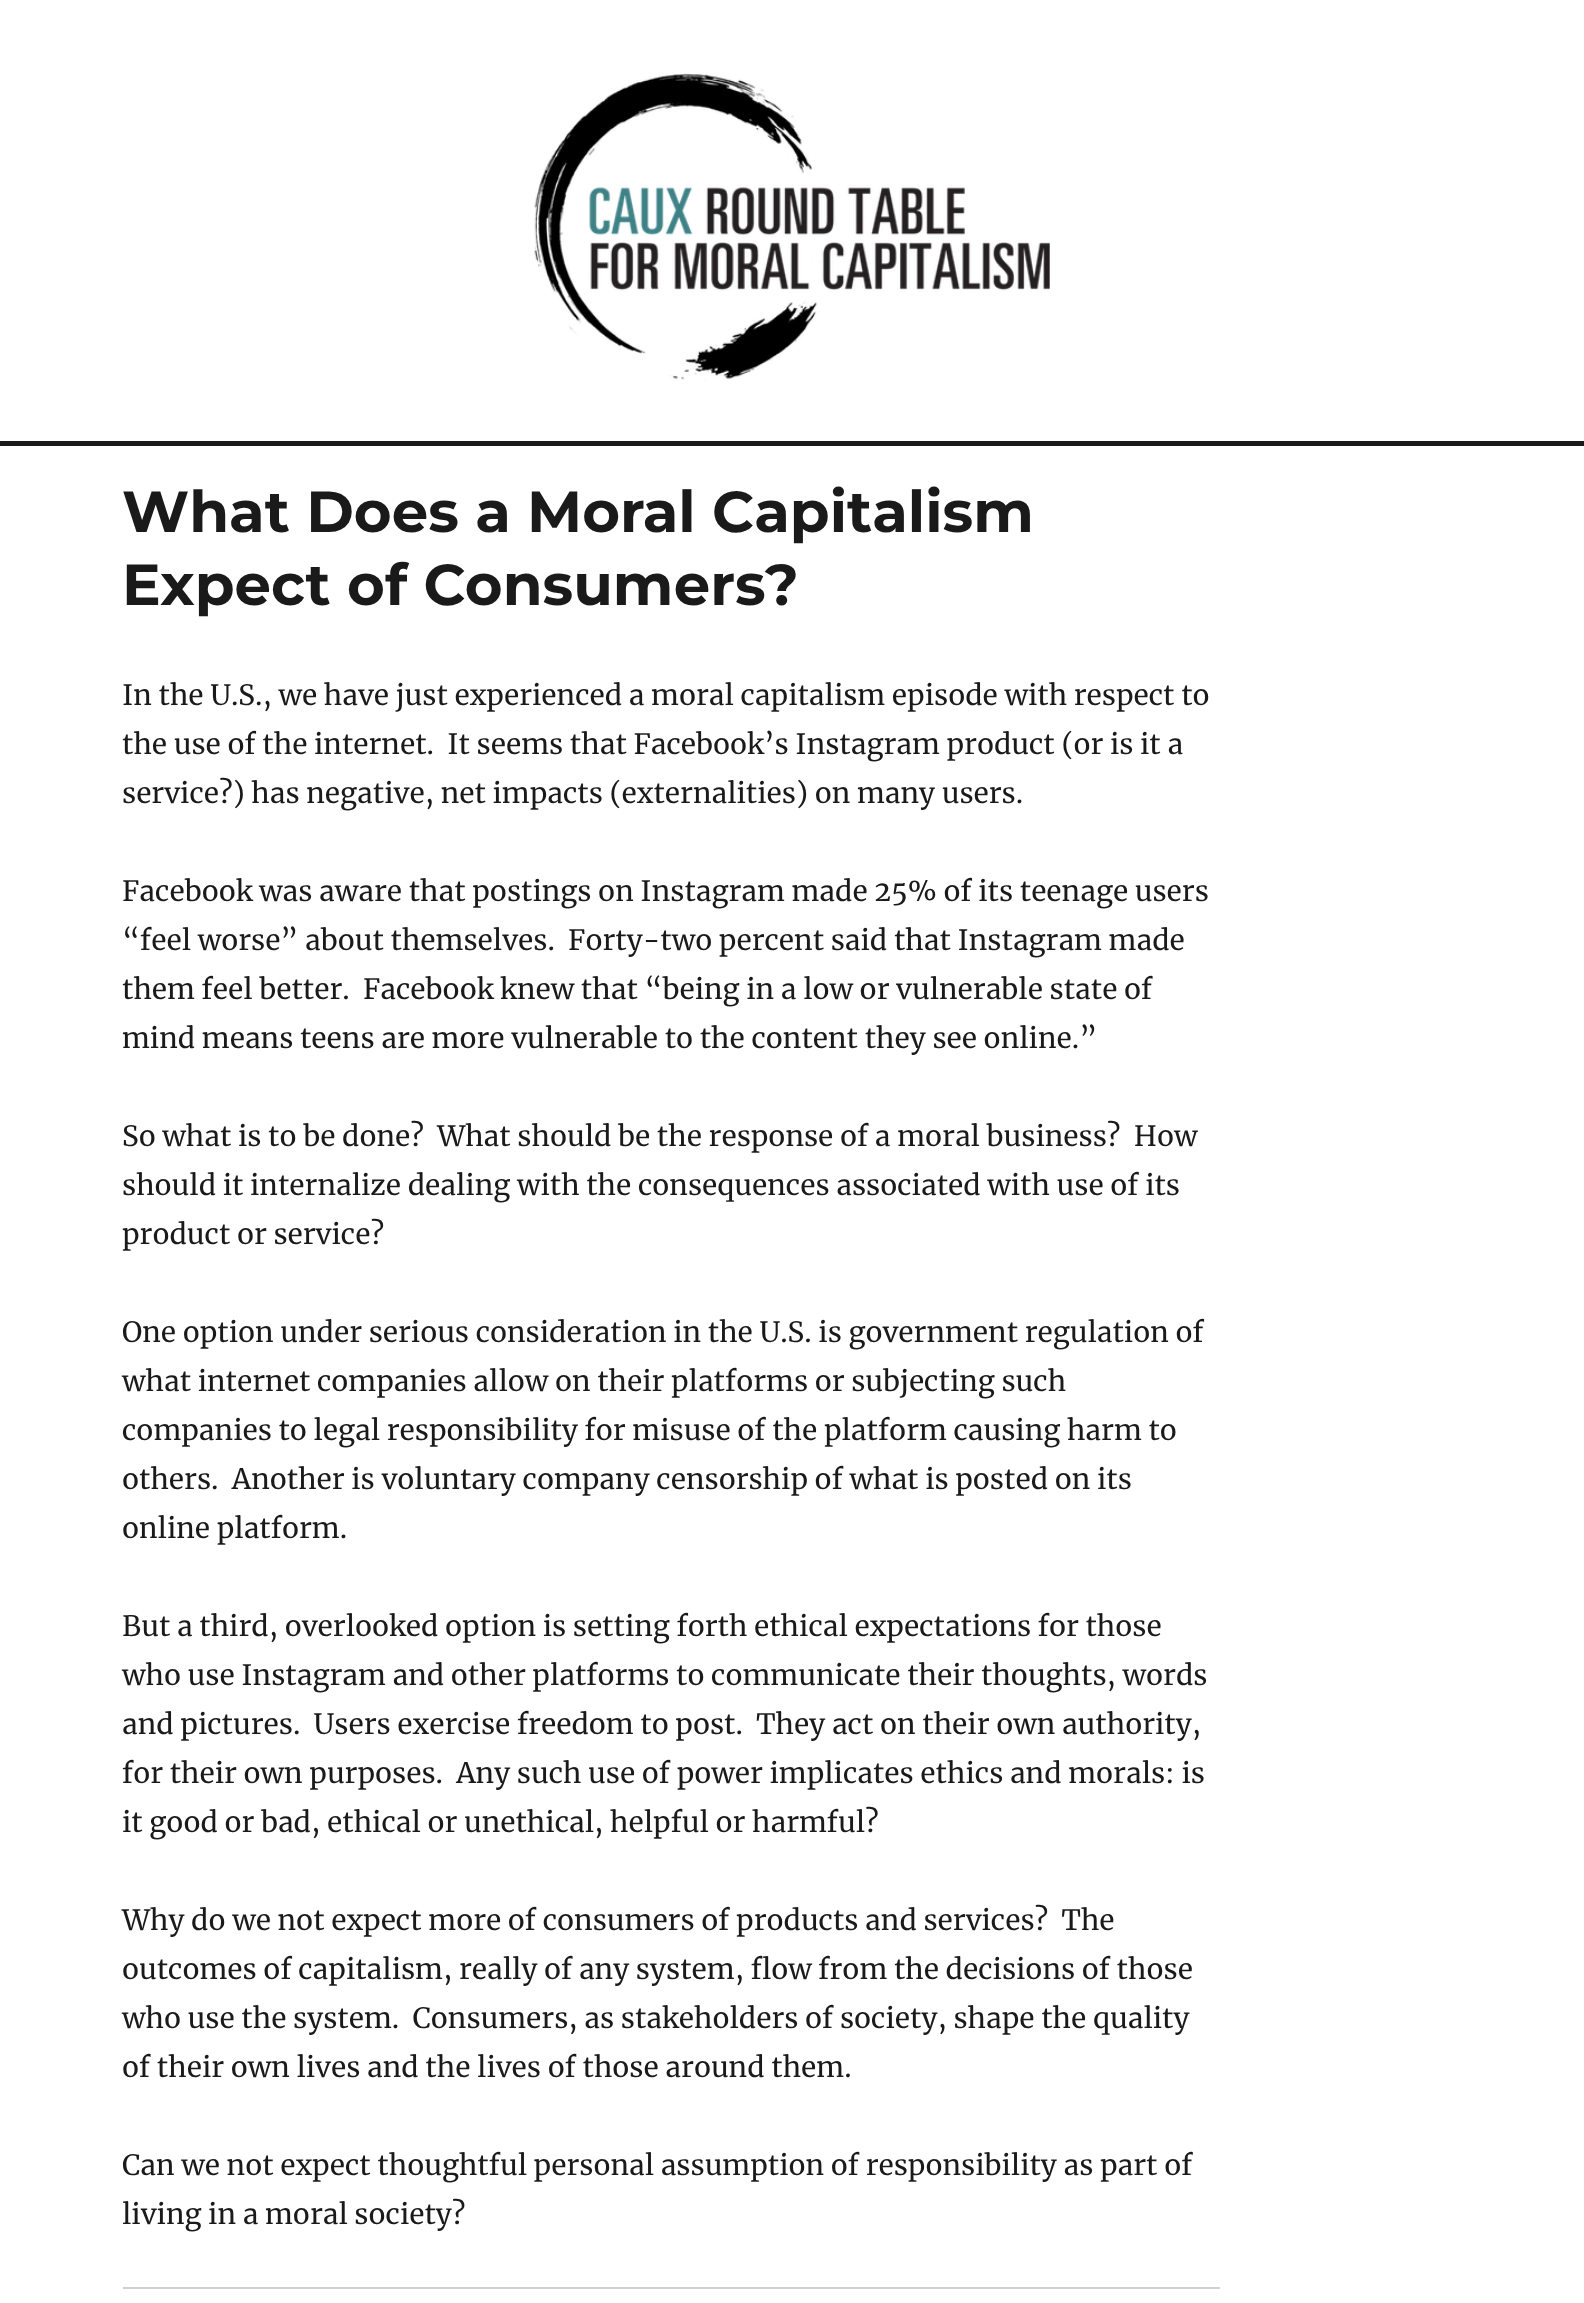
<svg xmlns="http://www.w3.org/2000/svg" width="1584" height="2303">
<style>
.a{font:100 57.75px Montserrat;fill:#1a1a1a}
.b{font:28px Merriweather;fill:#1a1a1a}
</style>
<rect width="100%" height="100%" fill="#fff"/>
<path fill="#1a1a1a" d="M0 441h1584v5H0z"/>
<image href="1.png" x="534" y="73" width="516" height="308"/>
<path fill="#d1d1d1" d="M123 2287h1097v2H123z"/>
<text class="a" x="122" y="532">What Does a Moral Capitalism</text>
<text class="a" x="122" y="605">Expect of Consumers?</text>
<text class="b" x="122" y="705">In the U.S., we have just experienced a moral capitalism episode with respect to</text>
<text class="b" xml:space="preserve" x="122" y="754">the use of the internet.  It seems that Facebook’s Instagram product (or is it a</text>
<text class="b" x="122" y="803">service?) has negative, net impacts (externalities) on many users.</text>
<text class="b" x="122" y="901">Facebook was aware that postings on Instagram made 25% of its teenage users</text>
<text class="b" xml:space="preserve" x="122" y="950">“feel worse” about themselves.  Forty-two percent said that Instagram made</text>
<text class="b" xml:space="preserve" x="122" y="999">them feel better.  Facebook knew that “being in a low or vulnerable state of</text>
<text class="b" x="122" y="1048">mind means teens are more vulnerable to the content they see online.”</text>
<text class="b" xml:space="preserve" x="122" y="1146">So what is to be done?  What should be the response of a moral business?  How</text>
<text class="b" x="122" y="1195">should it internalize dealing with the consequences associated with use of its</text>
<text class="b" x="122" y="1244">product or service?</text>
<text class="b" x="122" y="1342">One option under serious consideration in the U.S. is government regulation of</text>
<text class="b" x="122" y="1391">what internet companies allow on their platforms or subjecting such</text>
<text class="b" x="122" y="1440">companies to legal responsibility for misuse of the platform causing harm to</text>
<text class="b" xml:space="preserve" x="122" y="1489">others.  Another is voluntary company censorship of what is posted on its</text>
<text class="b" x="122" y="1538">online platform.</text>
<text class="b" x="122" y="1636">But a third, overlooked option is setting forth ethical expectations for those</text>
<text class="b" x="122" y="1685">who use Instagram and other platforms to communicate their thoughts, words</text>
<text class="b" xml:space="preserve" x="122" y="1734">and pictures.  Users exercise freedom to post.  They act on their own authority,</text>
<text class="b" xml:space="preserve" x="122" y="1783">for their own purposes.  Any such use of power implicates ethics and morals: is</text>
<text class="b" x="122" y="1832">it good or bad, ethical or unethical, helpful or harmful?</text>
<text class="b" xml:space="preserve" x="122" y="1930">Why do we not expect more of consumers of products and services?  The</text>
<text class="b" x="122" y="1979">outcomes of capitalism, really of any system, flow from the decisions of those</text>
<text class="b" xml:space="preserve" x="122" y="2028">who use the system.  Consumers, as stakeholders of society, shape the quality</text>
<text class="b" x="122" y="2077">of their own lives and the lives of those around them.</text>
<text class="b" x="122" y="2175">Can we not expect thoughtful personal assumption of responsibility as part of</text>
<text class="b" x="122" y="2224">living in a moral society?</text>
</svg>
